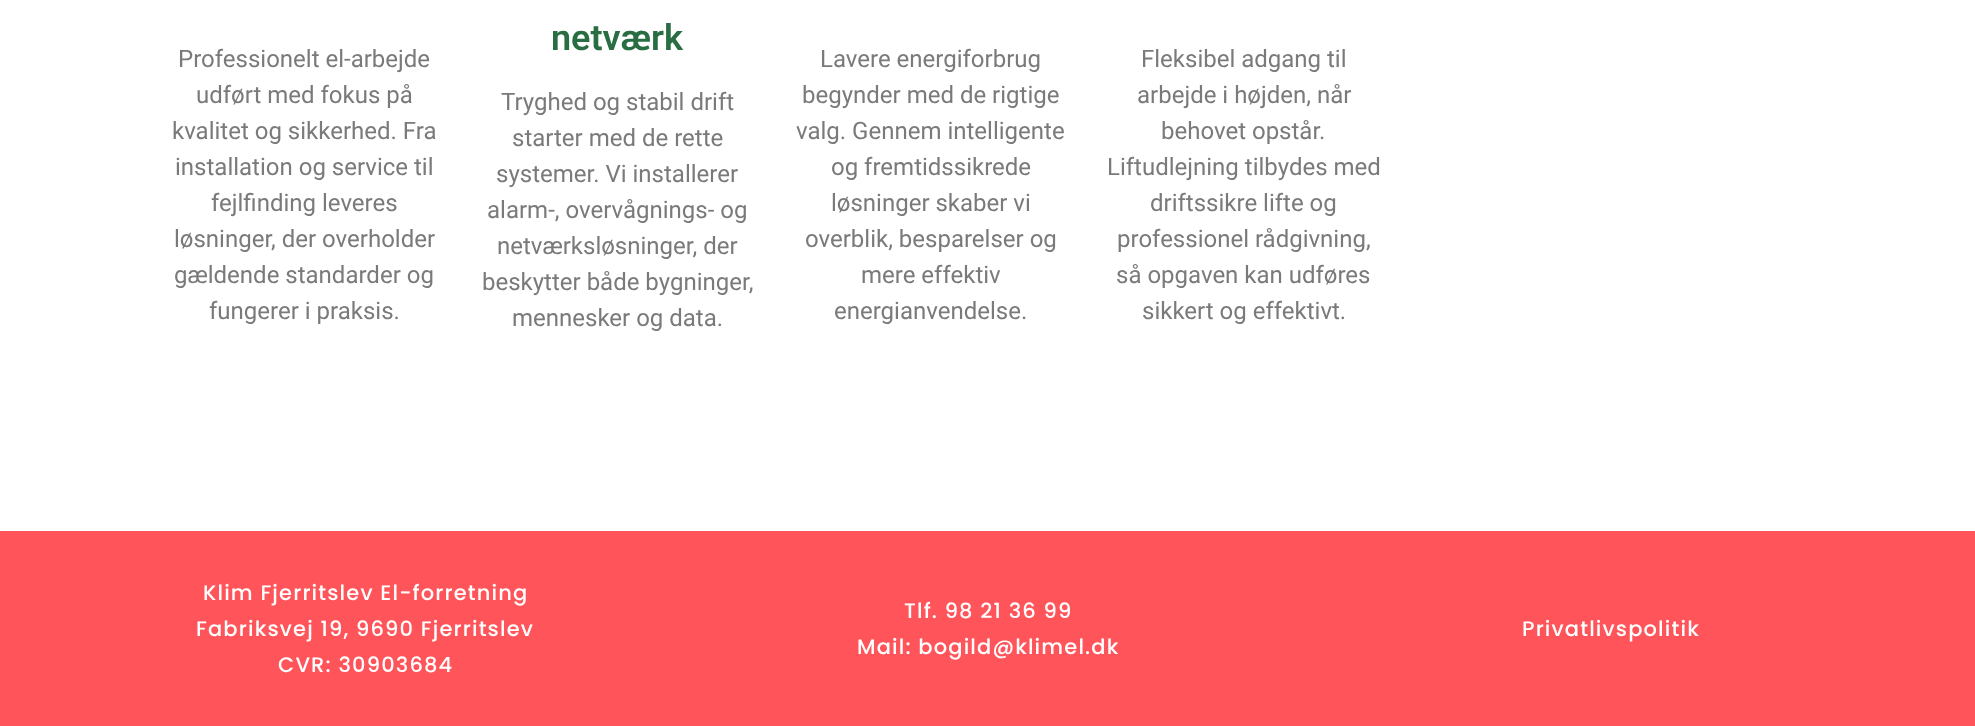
<!DOCTYPE html>
<meta charset="utf-8">
<style>body { margin: 0 } canvas { display: block }</style>
<canvas id="canvas" width="1975" height="726"></canvas>
<script>
window.onload = function () {
	const canvas = document.getElementById("canvas");
	const ctx = canvas.getContext("2d");
	ctx.miterLimit = 4;
	ctx.fontKerning = "normal";
	function txt(s, x, y) {
		ctx.fillText(s, x, y);
	}
	function fill(x, y, w, h) {
		ctx.fillRect(x, y, w, h);
	}

	ctx.fillStyle = "#FFFFFF";
	fill(0, 0, 1975, 726);
	ctx.fillStyle = "#FF5459";
	fill(0, 531, 1975, 195);
	ctx.font = "24px Roboto";
	ctx.fillStyle = "#7A7A7A";
	txt("Professionelt el-arbejde", 178, 67);
	txt("udført med fokus på", 196, 103);
	txt("kvalitet og sikkerhed. Fra", 172, 139);
	txt("installation og service til", 175, 175);
	txt("fejlfinding leveres", 211, 211);
	txt("løsninger, der overholder", 174, 247);
	txt("gældende standarder og", 174, 283);
	txt("fungerer i praksis.", 209, 319);
	ctx.font = "600 36px Roboto";
	ctx.fillStyle = "#296D43";
	txt("netværk", 551, 50);
	ctx.font = "24px Roboto";
	ctx.fillStyle = "#7A7A7A";
	txt("Tryghed og stabil drift", 501, 110);
	txt("starter med de rette", 512, 146);
	txt("systemer. Vi installerer", 496, 182);
	txt("alarm-, overvågnings- og", 487, 218);
	txt("netværksløsninger, der", 497, 254);
	txt("beskytter både bygninger,", 482, 290);
	txt("mennesker og data.", 512, 326);
	txt("Lavere energiforbrug", 820, 67);
	txt("begynder med de rigtige", 802, 103);
	txt("valg. Gennem intelligente", 796, 139);
	txt("og fremtidssikrede", 831, 175);
	txt("løsninger skaber vi", 831, 211);
	txt("overblik, besparelser og", 805, 247);
	txt("mere effektiv", 861, 283);
	txt("energianvendelse.", 834, 319);
	txt("Fleksibel adgang til", 1141, 67);
	txt("arbejde i højden, når", 1137, 103);
	txt("behovet opstår.", 1161, 139);
	txt("Liftudlejning tilbydes med", 1107, 175);
	txt("driftssikre lifte og", 1150, 211);
	txt("professionel rådgivning,", 1117, 247);
	txt("så opgaven kan udføres", 1116, 283);
	txt("sikkert og effektivt.", 1142, 319);
	ctx.letterSpacing = "1.15px";
	ctx.font = "500 21px Poppins";
	ctx.fillStyle = "#FFFFFF";
	txt("Klim Fjerritslev El-forretning", 203, 600);
	txt("Fabriksvej 19, 9690 Fjerritslev", 196, 636);
	txt("CVR: 30903684", 278, 672);
	txt("Tlf. 98 21 36 99", 904, 618);
	txt("Mail: bogild@klimel.dk", 857, 654);
	txt("Privatlivspolitik", 1522, 636);
};
</script>
